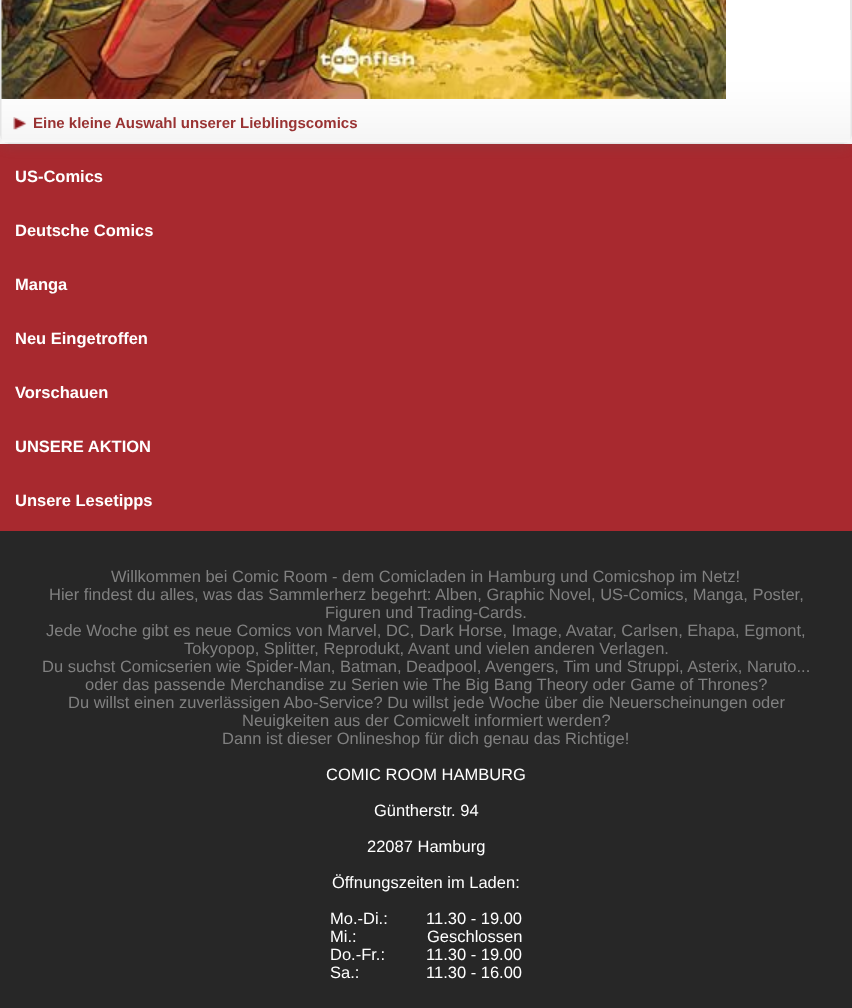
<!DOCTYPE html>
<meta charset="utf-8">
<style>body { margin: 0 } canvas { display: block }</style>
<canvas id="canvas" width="852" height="1008"></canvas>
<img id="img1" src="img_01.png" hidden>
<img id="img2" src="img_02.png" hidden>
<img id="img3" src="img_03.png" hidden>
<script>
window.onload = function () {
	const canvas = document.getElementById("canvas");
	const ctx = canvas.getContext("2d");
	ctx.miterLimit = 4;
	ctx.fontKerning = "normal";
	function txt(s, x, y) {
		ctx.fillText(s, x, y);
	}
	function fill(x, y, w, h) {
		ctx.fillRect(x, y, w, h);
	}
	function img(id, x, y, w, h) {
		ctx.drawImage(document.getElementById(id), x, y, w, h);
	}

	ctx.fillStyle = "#FFFFFF";
	fill(0, 0, 852, 1008);
	ctx.fillStyle = "#A8292F";
	fill(0, 144, 852, 387);
	ctx.save();
	ctx.beginPath();
	ctx.moveTo(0, 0);
	ctx.lineTo(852, 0);
	ctx.lineTo(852, 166);
	ctx.lineTo(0, 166);
	ctx.closePath();
	ctx.moveTo(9, -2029);
	ctx.lineTo(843, -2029);
	ctx.bezierCurveTo(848, -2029, 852, -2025, 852, -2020);
	ctx.lineTo(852, 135);
	ctx.bezierCurveTo(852, 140, 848, 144, 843, 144);
	ctx.lineTo(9, 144);
	ctx.bezierCurveTo(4, 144, 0, 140, 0, 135);
	ctx.lineTo(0, -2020);
	ctx.bezierCurveTo(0, -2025, 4, -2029, 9, -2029);
	ctx.closePath();
	ctx.clip("evenodd");
	ctx.fillStyle = "rgba(99, 99, 99, 0.2)";
	ctx.filter = "blur(6px)";
	ctx.beginPath();
	ctx.roundRect(0, -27, 852, 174, 9);
	ctx.fill();
	ctx.filter = "none";
	ctx.restore();
	ctx.beginPath();
	ctx.roundRect(1, -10, 850, 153, 8);
	ctx.strokeStyle = "#E5E5E5";
	ctx.lineWidth = 2;
	ctx.stroke();
	img("img1", 1, 30, 850, 113);
	img("img2", 1, 0, 725, 99);
	img("img3", 13, 117, 14, 13);
	ctx.fillStyle = "#272727";
	fill(0, 531, 852, 477);
	ctx.font = "bold 15px Liberation Sans";
	ctx.fillStyle = "#993333";
	txt("Eine kleine Auswahl unserer Lieblingscomics", 33, 128);
	ctx.font = "bold 16.5px Liberation Sans";
	ctx.fillStyle = "#FFFFFF";
	txt("US-Comics", 15, 182);
	txt("Deutsche Comics", 15, 236);
	txt("Manga", 15, 290);
	txt("Neu Eingetroffen", 15, 344);
	txt("Vorschauen", 15, 398);
	txt("UNSERE AKTION", 15, 452);
	txt("Unsere Lesetipps", 15, 506);
	ctx.font = "16.5px Liberation Sans";
	ctx.fillStyle = "#808080";
	txt("Willkommen bei Comic Room - dem Comicladen in Hamburg und Comicshop im Netz!", 111, 582);
	txt("Hier findest du alles, was das Sammlerherz begehrt: Alben, Graphic Novel, US-Comics, Manga, Poster,", 49, 600);
	txt("Figuren und Trading-Cards.", 325, 618);
	txt("Jede Woche gibt es neue Comics von Marvel, DC, Dark Horse, Image, Avatar, Carlsen, Ehapa, Egmont,", 46, 636);
	txt("Tokyopop, Splitter, Reprodukt, Avant und vielen anderen Verlagen.", 184, 654);
	txt("Du suchst Comicserien wie Spider-Man, Batman, Deadpool, Avengers, Tim und Struppi, Asterix, Naruto...", 42, 672);
	txt("oder das passende Merchandise zu Serien wie The Big Bang Theory oder Game of Thrones?", 85, 690);
	txt("Du willst einen zuverlässigen Abo-Service? Du willst jede Woche über die Neuerscheinungen oder", 68, 708);
	txt("Neuigkeiten aus der Comicwelt informiert werden?", 242, 726);
	txt("Dann ist dieser Onlineshop für dich genau das Richtige!", 222, 744);
	ctx.fillStyle = "#FFFFFF";
	txt("COMIC ROOM HAMBURG", 326, 780);
	txt("Güntherstr. 94", 374, 816);
	txt("22087 Hamburg", 367, 852);
	txt("Öffnungszeiten im Laden:", 332, 888);
	txt("Mo.-Di.:", 330, 924);
	txt("11.30 - 19.00", 426, 924);
	txt("Mi.:", 330, 942);
	txt("Geschlossen", 427, 942);
	txt("Do.-Fr.:", 330, 960);
	txt("11.30 - 19.00", 426, 960);
	txt("Sa.:", 330, 978);
	txt("11.30 - 16.00", 426, 978);
};
</script>
